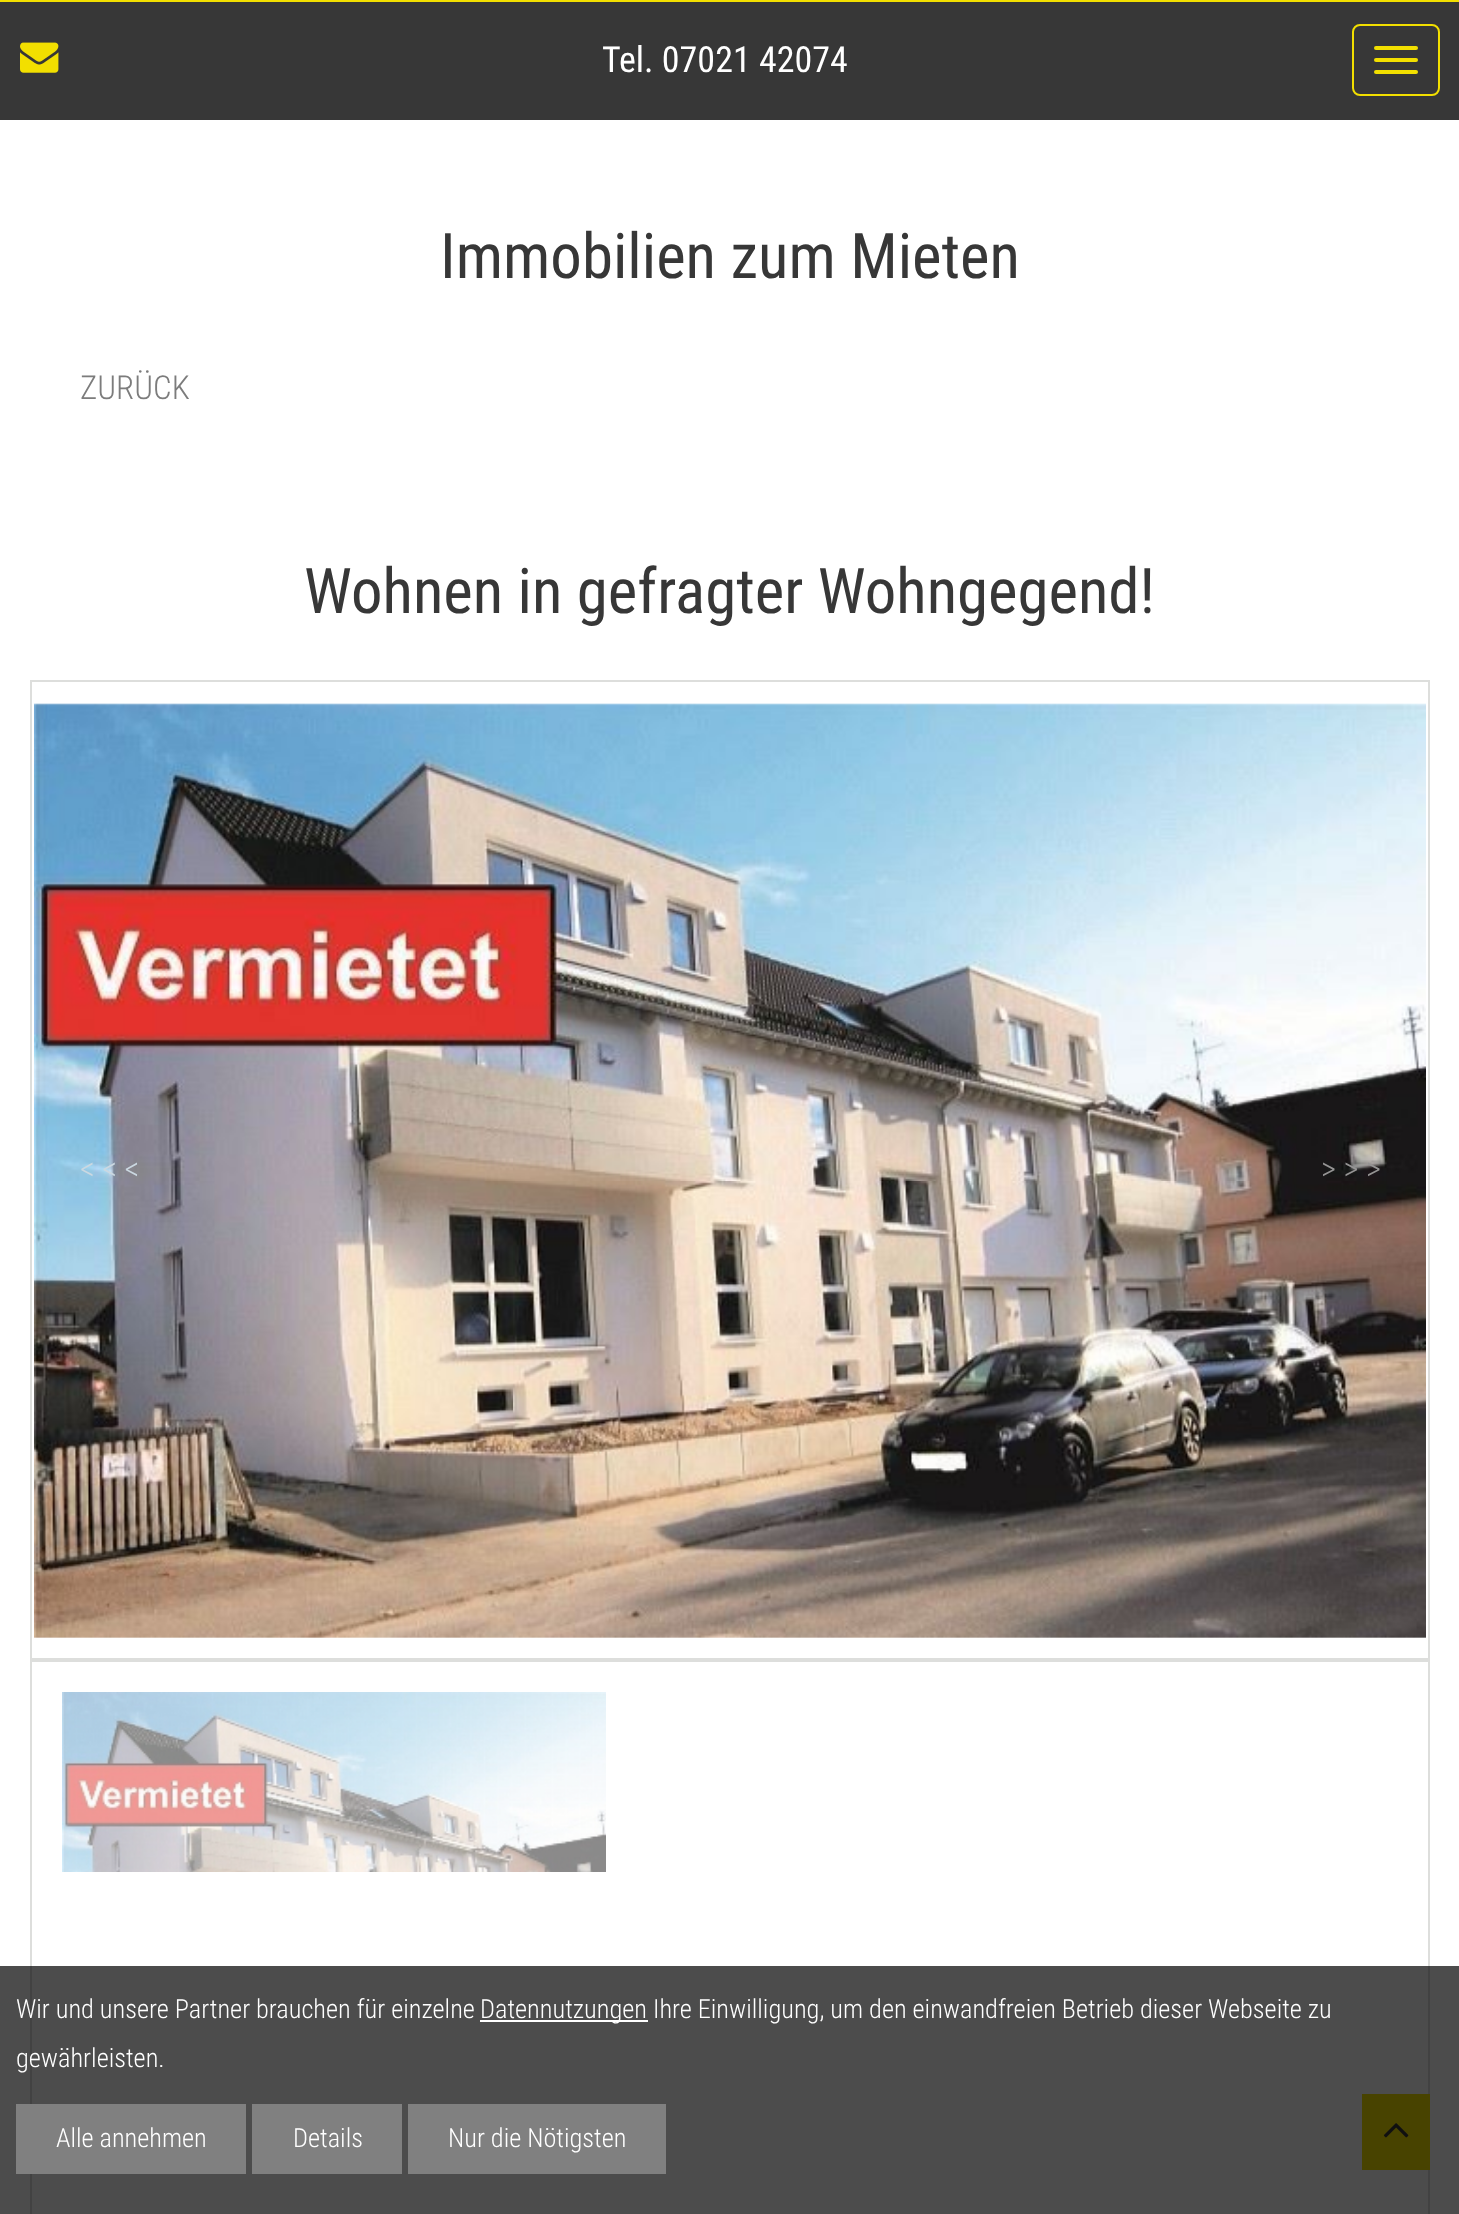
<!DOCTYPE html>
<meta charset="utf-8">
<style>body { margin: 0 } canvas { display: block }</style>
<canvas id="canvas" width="1459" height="2214"></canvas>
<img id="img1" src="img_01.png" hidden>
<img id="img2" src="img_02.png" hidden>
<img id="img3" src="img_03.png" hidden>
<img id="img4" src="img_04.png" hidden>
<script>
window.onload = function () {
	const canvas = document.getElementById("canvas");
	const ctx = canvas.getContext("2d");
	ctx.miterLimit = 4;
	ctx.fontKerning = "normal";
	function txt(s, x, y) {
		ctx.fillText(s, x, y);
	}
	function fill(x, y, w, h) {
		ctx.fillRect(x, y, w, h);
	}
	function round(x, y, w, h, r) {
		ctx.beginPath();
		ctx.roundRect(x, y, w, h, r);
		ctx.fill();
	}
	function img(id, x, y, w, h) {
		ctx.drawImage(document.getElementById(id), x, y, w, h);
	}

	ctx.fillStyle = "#FFFFFF";
	fill(0, 0, 1459, 2214);
	ctx.fillStyle = "#373737";
	fill(0, 2, 1459, 118);
	ctx.fillStyle = "#F2DF00";
	fill(0, 0, 1459, 2);
	img("img1", 20, 42, 39, 31);
	ctx.beginPath();
	ctx.roundRect(1353, 25, 86, 70, 7);
	ctx.strokeStyle = "#F2DF00";
	ctx.lineWidth = 2;
	ctx.stroke();
	round(1374, 46, 44, 4, 2);
	round(1374, 58, 44, 4, 2);
	round(1374, 70, 44, 4, 2);
	ctx.strokeStyle = "#DDDEDC";
	ctx.strokeRect(31, 681, 1398, 978);
	img("img2", 34, 703, 1392, 935);
	ctx.strokeRect(31, 1661, 1398, 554);
	img("img3", 62, 1692, 544, 180);
	fill(1362, 2094, 68, 76);
	img("img4", 1383, 2123, 26, 15);
	ctx.fillStyle = "rgba(0, 0, 0, 0.7)";
	fill(0, 1966, 1459, 248);
	ctx.fillStyle = "#FFFFFF";
	fill(480, 2020, 168, 2);
	ctx.fillStyle = "#808080";
	fill(16, 2104, 230, 70);
	fill(252, 2104, 150, 70);
	fill(408, 2104, 258, 70);
	ctx.font = "36px Roboto Condensed";
	ctx.fillStyle = "#FFFFFF";
	txt("Tel. 07021 42074", 602, 72);
	ctx.font = "62.9px Roboto Condensed";
	ctx.fillStyle = "#373737";
	txt("Immobilien zum Mieten", 440, 278);
	ctx.font = "300 33px Roboto Condensed";
	ctx.fillStyle = "#7C7C7C";
	txt("ZURÜCK", 80, 399);
	ctx.font = "62.9px Roboto Condensed";
	ctx.fillStyle = "#373737";
	txt("Wohnen in gefragter Wohngegend!", 304, 613);
	ctx.font = "300 33px Roboto Condensed";
	ctx.fillStyle = "#CBD8E1";
	txt("< < <", 80, 1180);
	ctx.fillStyle = "#959494";
	txt("> > >", 1321, 1180);
	ctx.font = "300 26.35px Roboto Condensed";
	ctx.fillStyle = "#FFFFFF";
	txt("Wir und unsere Partner brauchen für einzelne", 16, 2018);
	txt("Datennutzungen Ihre Einwilligung, um den einwandfreien Betrieb dieser Webseite zu", 480, 2018);
	txt("gewährleisten.", 16, 2067);
	txt("Alle annehmen", 56, 2147);
	txt("Details", 293, 2147);
	txt("Nur die Nötigsten", 448, 2147);
};
</script>
